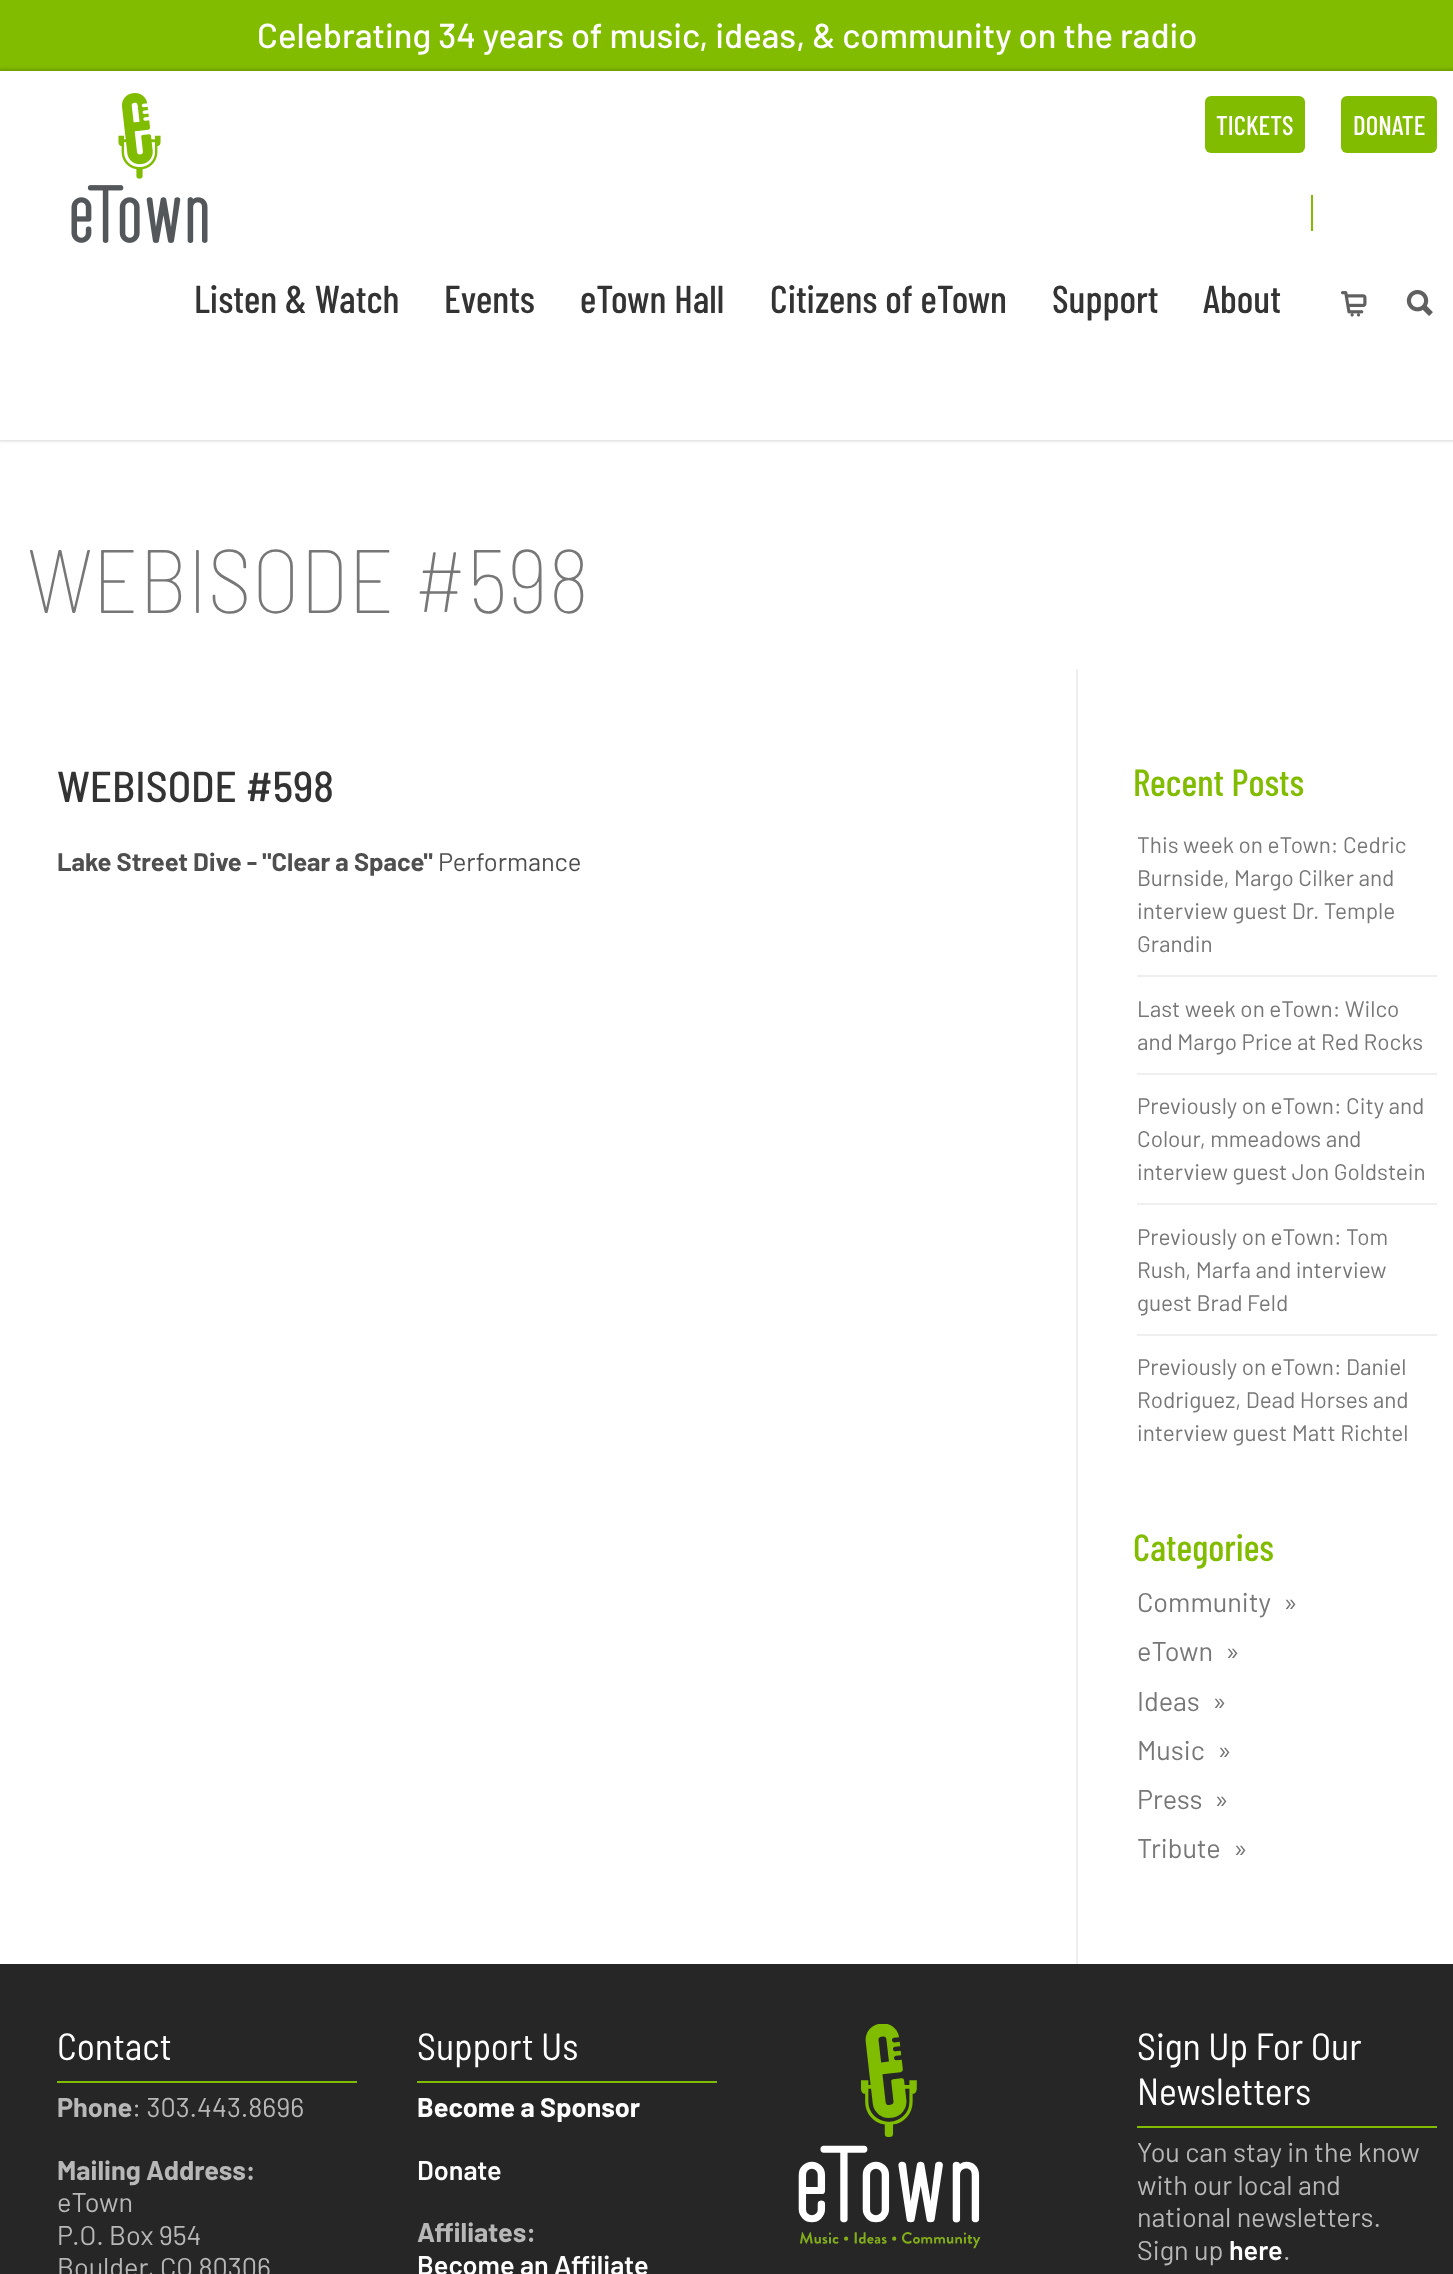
<!DOCTYPE html>
<meta charset="utf-8">
<style>body { margin: 0 } canvas { display: block }</style>
<canvas id="canvas" width="1453" height="2274"></canvas>
<img id="img1" src="img_01.png" hidden>
<img id="img2" src="img_02.png" hidden>
<img id="img3" src="img_03.png" hidden>
<img id="img4" src="img_04.png" hidden>
<script>
window.onload = function () {
	const canvas = document.getElementById("canvas");
	const ctx = canvas.getContext("2d");
	ctx.miterLimit = 4;
	ctx.fontKerning = "normal";
	function txt(s, x, y) {
		ctx.fillText(s, x, y);
	}
	function fill(x, y, w, h) {
		ctx.fillRect(x, y, w, h);
	}
	function round(x, y, w, h, r) {
		ctx.beginPath();
		ctx.roundRect(x, y, w, h, r);
		ctx.fill();
	}
	function img(id, x, y, w, h) {
		ctx.drawImage(document.getElementById(id), x, y, w, h);
	}

	ctx.fillStyle = "#FFFFFF";
	fill(0, 0, 1453, 2274);
	ctx.fillStyle = "#82BC00";
	fill(0, 0, 1453, 71);
	ctx.fillStyle = "rgba(0, 0, 0, 0.16)";
	ctx.filter = "blur(1.5px)";
	ctx.beginPath();
	ctx.rect(-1, 69, 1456, 372);
	ctx.fill();
	ctx.filter = "none";
	ctx.fillStyle = "#FFFFFF";
	fill(0, 71, 1453, 369);
	ctx.fillStyle = "#82BC00";
	round(1205, 96, 100, 57, 6);
	round(1341, 96, 96, 57, 6);
	img("img1", 71, 93, 137, 150);
	fill(1311, 195, 2, 36);
	img("img2", 1341, 291, 26, 26);
	img("img3", 1406, 289, 27, 27);
	ctx.fillStyle = "#EFEFEF";
	fill(1076, 669, 2, 1295);
	fill(1137, 975, 300, 2);
	fill(1137, 1073, 300, 2);
	fill(1137, 1203, 300, 2);
	fill(1137, 1334, 300, 2);
	ctx.fillStyle = "#262626";
	fill(0, 1964, 1453, 310);
	ctx.fillStyle = "#80BC00";
	fill(57, 2081, 300, 2);
	fill(417, 2081, 300, 2);
	img("img4", 798, 2024, 183, 225);
	fill(1137, 2126, 300, 2);
	ctx.font = "500 34.5px Barlow";
	ctx.fillStyle = "#FFFFFF";
	txt("Celebrating 34 years of music, ideas, & community on the radio", 257, 48);
	ctx.font = "500 27px Barlow Condensed";
	txt("TICKETS", 1216, 135);
	txt("DONATE", 1353, 135);
	ctx.font = "500 39px Barlow Condensed";
	ctx.fillStyle = "#333333";
	txt("Listen & Watch", 194, 313);
	txt("Events", 444, 313);
	txt("eTown Hall", 580, 313);
	txt("Citizens of eTown", 770, 313);
	txt("Support", 1052, 313);
	txt("About", 1203, 313);
	ctx.font = "100 90px Barlow Semi Condensed";
	ctx.fillStyle = "#777777";
	txt("WEBISODE #598", 27, 613);
	ctx.font = "500 43.25px Barlow Semi Condensed";
	ctx.fillStyle = "#333333";
	txt("WEBISODE #598", 57, 802);
	ctx.font = "bold 25.5px Barlow";
	ctx.fillStyle = "#4F4F4F";
	txt("Lake Street Dive - \"Clear a Space\"", 57, 871);
	ctx.font = "25.5px Barlow";
	txt("Performance", 438, 871);
	ctx.font = "500 37.75px Barlow Condensed";
	ctx.fillStyle = "#82BC00";
	txt("Recent Posts", 1133, 796);
	ctx.font = "22.5px Barlow";
	ctx.fillStyle = "#777777";
	txt("This week on eTown: Cedric", 1137, 853);
	txt("Burnside, Margo Cilker and", 1137, 886);
	txt("interview guest Dr. Temple", 1137, 919);
	txt("Grandin", 1137, 952);
	txt("Last week on eTown: Wilco", 1137, 1017);
	txt("and Margo Price at Red Rocks", 1137, 1050);
	txt("Previously on eTown: City and", 1137, 1114);
	txt("Colour, mmeadows and", 1137, 1147);
	txt("interview guest Jon Goldstein", 1137, 1180);
	txt("Previously on eTown: Tom", 1137, 1245);
	txt("Rush, Marfa and interview", 1137, 1278);
	txt("guest Brad Feld", 1137, 1311);
	txt("Previously on eTown: Daniel", 1137, 1375);
	txt("Rodriguez, Dead Horses and", 1137, 1408);
	txt("interview guest Matt Richtel", 1137, 1441);
	ctx.font = "500 37.75px Barlow Condensed";
	ctx.fillStyle = "#82BC00";
	txt("Categories", 1133, 1561);
	ctx.font = "27px Barlow";
	ctx.fillStyle = "#777777";
	txt("Community", 1137, 1612);
	txt("»", 1283, 1612);
	txt("eTown", 1137, 1661);
	txt("»", 1225, 1661);
	txt("Ideas", 1137, 1711);
	txt("»", 1212, 1711);
	txt("Music", 1137, 1760);
	txt("»", 1217, 1760);
	txt("Press", 1137, 1809);
	txt("»", 1214, 1809);
	txt("Tribute", 1137, 1858);
	txt("»", 1233, 1858);
	ctx.font = "37.75px Barlow Semi Condensed";
	ctx.fillStyle = "#FFFFFF";
	txt("Contact", 57, 2060);
	ctx.font = "bold 27px Barlow";
	ctx.fillStyle = "#B7B7B7";
	txt("Phone", 57, 2117);
	ctx.font = "27px Barlow";
	txt(": 303.443.8696", 132, 2117);
	ctx.font = "bold 27px Barlow";
	txt("Mailing Address:", 57, 2180);
	ctx.font = "27px Barlow";
	txt("eTown", 57, 2212);
	txt("P.O. Box 954", 57, 2245);
	txt("Boulder, CO 80306", 57, 2277);
	ctx.font = "37.75px Barlow Semi Condensed";
	ctx.fillStyle = "#FFFFFF";
	txt("Support Us", 417, 2060);
	ctx.font = "bold 27px Barlow";
	txt("Become a Sponsor", 417, 2117);
	ctx.font = "600 27px Barlow";
	txt("Donate", 417, 2180);
	ctx.font = "bold 27px Barlow";
	ctx.fillStyle = "#B7B7B7";
	txt("Affiliates:", 417, 2242);
	ctx.font = "600 27px Barlow";
	ctx.fillStyle = "#FFFFFF";
	txt("Become an Affiliate", 417, 2275);
	ctx.font = "37.75px Barlow Semi Condensed";
	txt("Sign Up For Our", 1137, 2060);
	txt("Newsletters", 1137, 2105);
	ctx.font = "27px Barlow";
	ctx.fillStyle = "#B7B7B7";
	txt("You can stay in the know", 1137, 2162);
	txt("with our local and", 1137, 2195);
	txt("national newsletters.", 1137, 2227);
	txt("Sign up", 1137, 2260);
	ctx.font = "600 27px Barlow";
	ctx.fillStyle = "#FFFFFF";
	txt("here", 1229, 2260);
	ctx.font = "27px Barlow";
	ctx.fillStyle = "#B7B7B7";
	txt(".", 1283, 2260);
};
</script>
